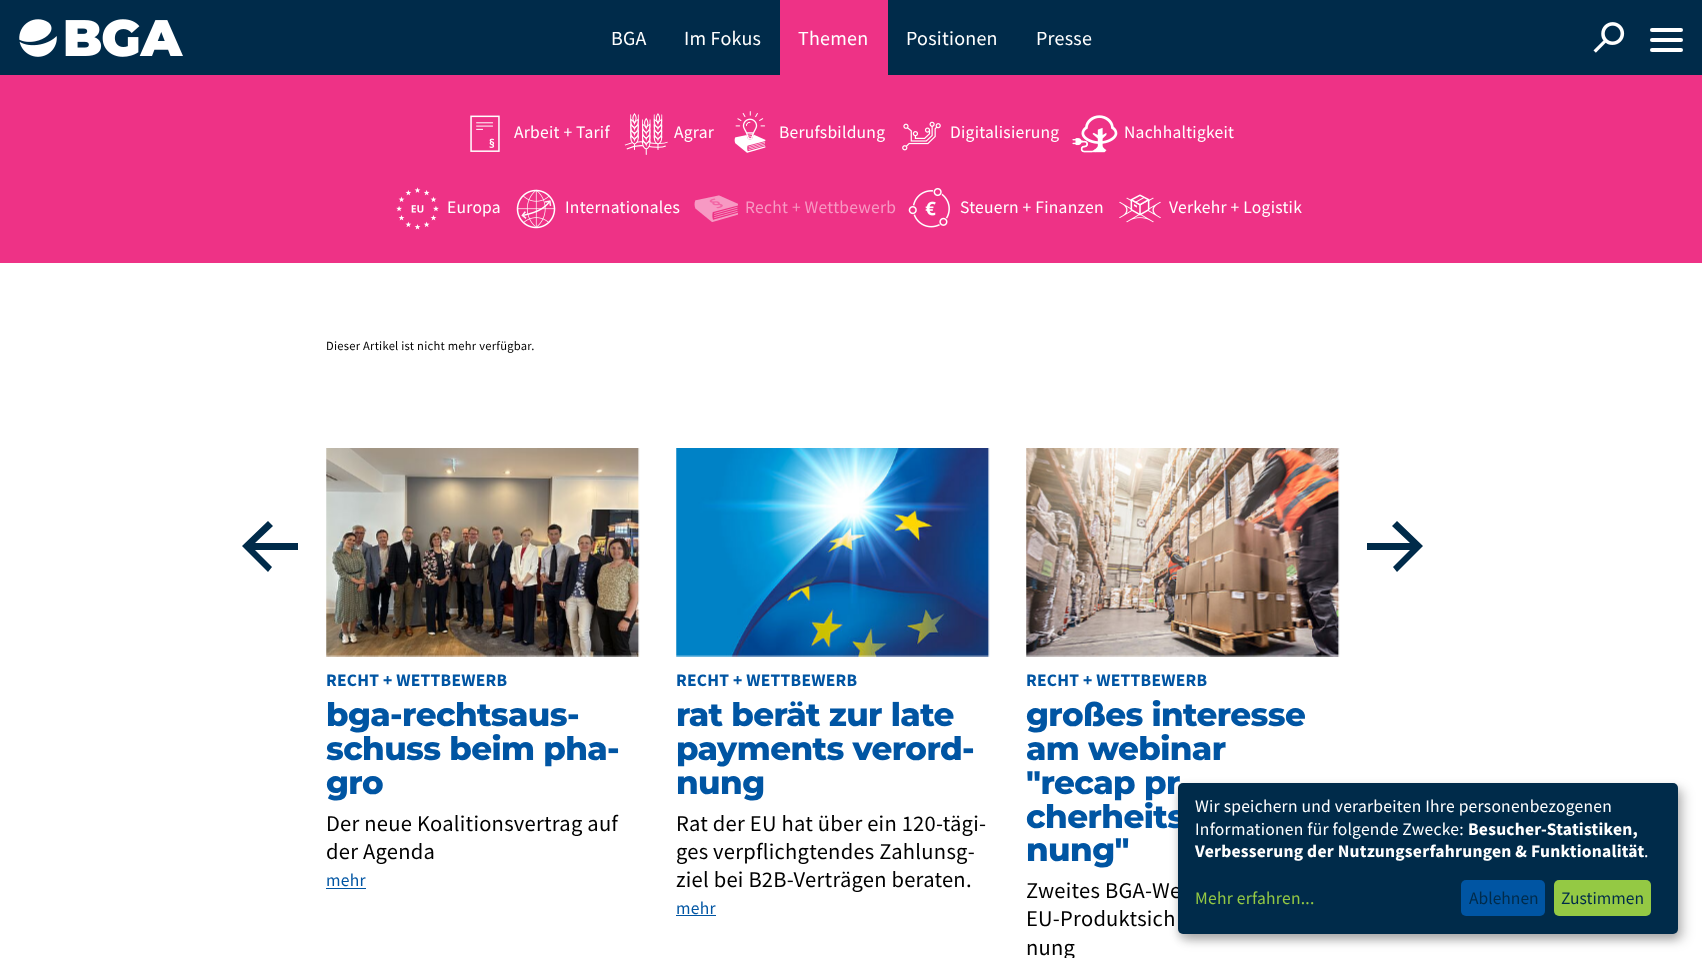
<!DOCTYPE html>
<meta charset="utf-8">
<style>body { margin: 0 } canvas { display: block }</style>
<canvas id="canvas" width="1702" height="958"></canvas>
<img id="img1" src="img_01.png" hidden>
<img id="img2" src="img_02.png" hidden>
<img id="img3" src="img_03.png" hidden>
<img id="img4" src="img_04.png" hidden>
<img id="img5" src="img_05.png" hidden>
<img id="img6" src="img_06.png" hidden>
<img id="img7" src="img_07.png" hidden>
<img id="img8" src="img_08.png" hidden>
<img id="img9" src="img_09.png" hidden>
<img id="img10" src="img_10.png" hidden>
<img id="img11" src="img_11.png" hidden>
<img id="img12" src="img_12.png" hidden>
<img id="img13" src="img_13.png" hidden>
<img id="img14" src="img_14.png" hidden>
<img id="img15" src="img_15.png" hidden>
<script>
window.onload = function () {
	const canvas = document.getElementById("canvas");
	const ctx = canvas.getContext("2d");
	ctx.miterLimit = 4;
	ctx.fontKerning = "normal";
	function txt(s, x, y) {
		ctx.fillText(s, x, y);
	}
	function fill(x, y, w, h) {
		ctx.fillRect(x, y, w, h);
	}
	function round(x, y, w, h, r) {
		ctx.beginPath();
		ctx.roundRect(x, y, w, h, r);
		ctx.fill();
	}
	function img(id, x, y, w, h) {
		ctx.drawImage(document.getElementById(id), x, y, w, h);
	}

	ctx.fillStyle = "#FFFFFF";
	fill(0, 0, 1702, 958);
	ctx.fillStyle = "#002B4A";
	fill(0, 0, 1702, 75);
	img("img1", 19, 19, 164, 38);
	ctx.fillStyle = "#EE3286";
	fill(780, 0, 108, 75);
	fill(0, 75, 1702, 188);
	img("img2", 470, 115, 30, 37);
	img("img3", 624, 113, 44, 42);
	img("img4", 734, 111, 32, 42);
	img("img5", 902, 121, 39, 30);
	img("img6", 1072, 115, 46, 38);
	img("img7", 396, 187, 43, 43);
	img("img8", 516, 189, 40, 40);
	img("img9", 694, 195, 44, 27);
	img("img10", 908, 187, 42, 41);
	img("img11", 1119, 194, 42, 29);
	img("img12", 1593, 22, 32, 31);
	ctx.fillStyle = "#FFFFFF";
	round(1650, 28, 33, 4, 2);
	round(1650, 38, 33, 4, 2);
	round(1650, 48, 33, 4, 2);
	ctx.fillStyle = "#002B4A";
	ctx.beginPath();
	ctx.moveTo(298, 550);
	ctx.lineTo(255, 550);
	ctx.lineTo(272, 567);
	ctx.lineTo(268, 572);
	ctx.lineTo(242, 546);
	ctx.lineTo(268, 521);
	ctx.lineTo(273, 526);
	ctx.lineTo(255, 543);
	ctx.lineTo(298, 543);
	ctx.closePath();
	ctx.fill("evenodd");
	ctx.beginPath();
	ctx.moveTo(1367, 550);
	ctx.lineTo(1410, 550);
	ctx.lineTo(1393, 567);
	ctx.lineTo(1397, 572);
	ctx.lineTo(1423, 546);
	ctx.lineTo(1397, 521);
	ctx.lineTo(1392, 526);
	ctx.lineTo(1410, 543);
	ctx.lineTo(1367, 543);
	ctx.closePath();
	ctx.fill("evenodd");
	img("img13", 326, 448, 314, 209);
	ctx.fillStyle = "#0055A3";
	fill(326, 888, 40, 1);
	img("img14", 676, 448, 314, 209);
	fill(676, 915, 40, 1);
	img("img15", 1026, 448, 314, 209);
	ctx.fillStyle = "rgba(0, 0, 0, 0.19)";
	ctx.filter = "blur(6px)";
	ctx.beginPath();
	ctx.roundRect(1184, 789, 500, 151, 5);
	ctx.fill();
	ctx.filter = "none";
	ctx.fillStyle = "rgba(0, 0, 0, 0.2)";
	ctx.filter = "blur(4px)";
	ctx.beginPath();
	ctx.roundRect(1178, 788, 500, 151, 5);
	ctx.fill();
	ctx.filter = "none";
	ctx.letterSpacing = "0.25px";
	ctx.font = "20px Source Sans Pro";
	ctx.fillStyle = "#FFFFFF";
	txt("Themen", 798, 45);
	ctx.font = "17.5px Source Sans Pro";
	txt("Arbeit + Tarif", 514, 138);
	txt("Agrar", 674, 138);
	txt("Berufsbildung", 779, 138);
	txt("Digitalisierung", 950, 138);
	txt("Nachhaltigkeit", 1124, 138);
	txt("Europa", 447, 213);
	txt("Internationales", 565, 213);
	ctx.fillStyle = "#F799C3";
	txt("Recht + Wettbewerb", 745, 213);
	ctx.fillStyle = "#FFFFFF";
	txt("Steuern + Finanzen", 960, 213);
	txt("Verkehr + Logistik", 1169, 213);
	ctx.font = "20px Source Sans Pro";
	txt("BGA", 611, 45);
	txt("Im Fokus", 684, 45);
	txt("Positionen", 906, 45);
	txt("Presse", 1036, 45);
	ctx.font = "12.5px Source Sans Pro";
	ctx.fillStyle = "#000000";
	txt("Dieser Artikel ist nicht mehr verfügbar.", 326, 350);
	ctx.font = "bold 17.5px Source Sans Pro";
	ctx.fillStyle = "#0055A3";
	txt("RECHT + WETTBEWERB", 326, 686);
	ctx.letterSpacing = "-0.6px";
	ctx.font = "100 32.5px Montserrat";
	txt("bga-rechtsaus-", 326, 726);
	txt("schuss beim pha-", 326, 760);
	txt("gro", 326, 794);
	ctx.letterSpacing = "0.25px";
	ctx.font = "22.5px Source Sans Pro";
	ctx.fillStyle = "#000000";
	txt("Der neue Koalitionsvertrag auf", 326, 831);
	txt("der Agenda", 326, 859);
	ctx.font = "17.5px Source Sans Pro";
	ctx.fillStyle = "#0055A3";
	txt("mehr", 326, 886);
	ctx.font = "bold 17.5px Source Sans Pro";
	txt("RECHT + WETTBEWERB", 676, 686);
	ctx.letterSpacing = "-0.6px";
	ctx.font = "100 32.5px Montserrat";
	txt("rat berät zur late", 676, 726);
	txt("payments verord-", 676, 760);
	txt("nung", 676, 794);
	ctx.letterSpacing = "0.25px";
	ctx.font = "22.5px Source Sans Pro";
	ctx.fillStyle = "#000000";
	txt("Rat der EU hat über ein 120-tägi-", 676, 831);
	txt("ges verpflichgtendes Zahlunsg-", 676, 859);
	txt("ziel bei B2B-Verträgen beraten.", 676, 887);
	ctx.font = "17.5px Source Sans Pro";
	ctx.fillStyle = "#0055A3";
	txt("mehr", 676, 914);
	ctx.font = "bold 17.5px Source Sans Pro";
	txt("RECHT + WETTBEWERB", 1026, 686);
	ctx.letterSpacing = "-0.6px";
	ctx.font = "100 32.5px Montserrat";
	txt("großes interesse", 1026, 726);
	txt("am webinar", 1026, 760);
	txt("\"recap pr", 1026, 794);
	txt("cherheits", 1026, 828);
	txt("nung\"", 1026, 861);
	ctx.letterSpacing = "0.25px";
	ctx.font = "22.5px Source Sans Pro";
	ctx.fillStyle = "#000000";
	txt("Zweites BGA-We", 1026, 898);
	txt("EU-Produktsich", 1026, 926);
	txt("nung", 1026, 955);
	ctx.fillStyle = "#002B4A";
	round(1178, 783, 500, 151, 5);
	ctx.font = "17.5px Source Sans Pro";
	ctx.fillStyle = "#FFFFFF";
	txt("Wir speichern und verarbeiten Ihre personenbezogenen", 1195, 812);
	txt("Informationen für folgende Zwecke:", 1195, 835);
	ctx.font = "bold 17.5px Source Sans Pro";
	txt("Besucher-Statistiken,", 1468, 835);
	txt("Verbesserung der Nutzungserfahrungen & Funktionalität", 1195, 857);
	ctx.font = "17.5px Source Sans Pro";
	txt(".", 1644, 857);
	ctx.fillStyle = "#94C944";
	txt("Mehr erfahren...", 1195, 904);
	ctx.fillStyle = "#0055A3";
	round(1461, 880, 84, 36, 5);
	ctx.letterSpacing = "0px";
	ctx.fillStyle = "#002B4A";
	txt("Ablehnen", 1469, 904);
	ctx.fillStyle = "#94C944";
	round(1554, 880, 97, 36, 5);
	ctx.fillStyle = "#002B4A";
	txt("Zustimmen", 1561, 904);
};
</script>
